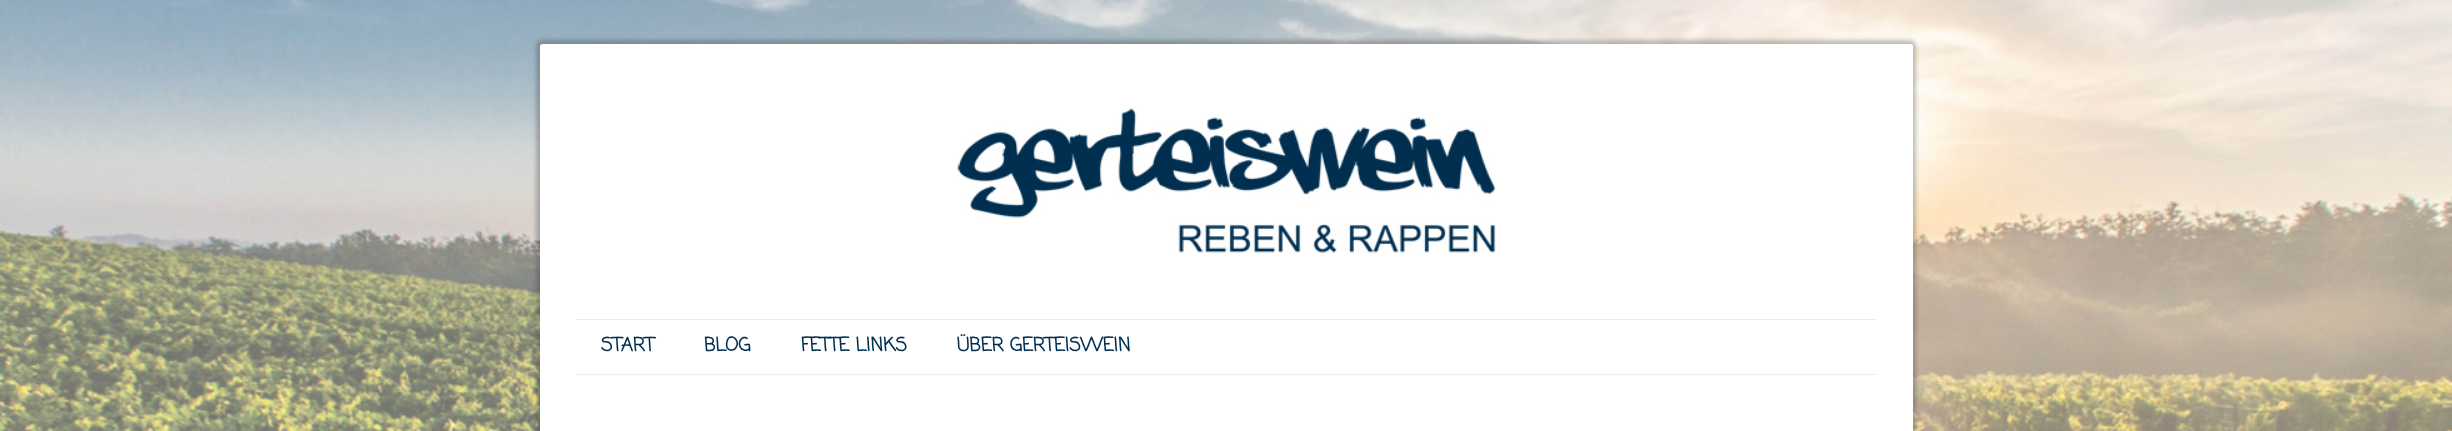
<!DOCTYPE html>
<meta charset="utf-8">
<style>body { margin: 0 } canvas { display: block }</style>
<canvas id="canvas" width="2452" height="431"></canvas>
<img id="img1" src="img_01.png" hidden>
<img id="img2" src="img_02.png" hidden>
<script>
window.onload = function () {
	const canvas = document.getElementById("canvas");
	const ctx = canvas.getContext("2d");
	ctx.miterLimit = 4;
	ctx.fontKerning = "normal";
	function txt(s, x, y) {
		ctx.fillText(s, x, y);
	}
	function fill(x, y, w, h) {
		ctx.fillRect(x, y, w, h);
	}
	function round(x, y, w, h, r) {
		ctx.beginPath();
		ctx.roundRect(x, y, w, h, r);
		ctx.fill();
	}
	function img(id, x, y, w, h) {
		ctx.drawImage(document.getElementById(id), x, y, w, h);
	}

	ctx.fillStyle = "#FFFFFF";
	fill(0, 0, 2452, 431);
	img("img1", 0, 0, 2452, 431);
	ctx.fillStyle = "rgba(51, 51, 51, 0.3)";
	ctx.filter = "blur(2px)";
	ctx.beginPath();
	ctx.roundRect(536, 40, 1380, 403, 6);
	ctx.fill();
	ctx.filter = "none";
	ctx.fillStyle = "#FFFFFF";
	round(540, 44, 1373, 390, 2.5);
	img("img2", 957, 108, 539, 145);
	ctx.fillStyle = "#EDEDED";
	fill(576, 319, 1300, 1);
	fill(576, 374, 1300, 1);
	ctx.font = "bold 18.75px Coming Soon";
	ctx.fillStyle = "#002F50";
	txt("START", 601, 351);
	txt("BLOG", 704, 351);
	txt("FETTE LINKS", 801, 351);
	txt("ÜBER GERTEISWEIN", 957, 351);
};
</script>
